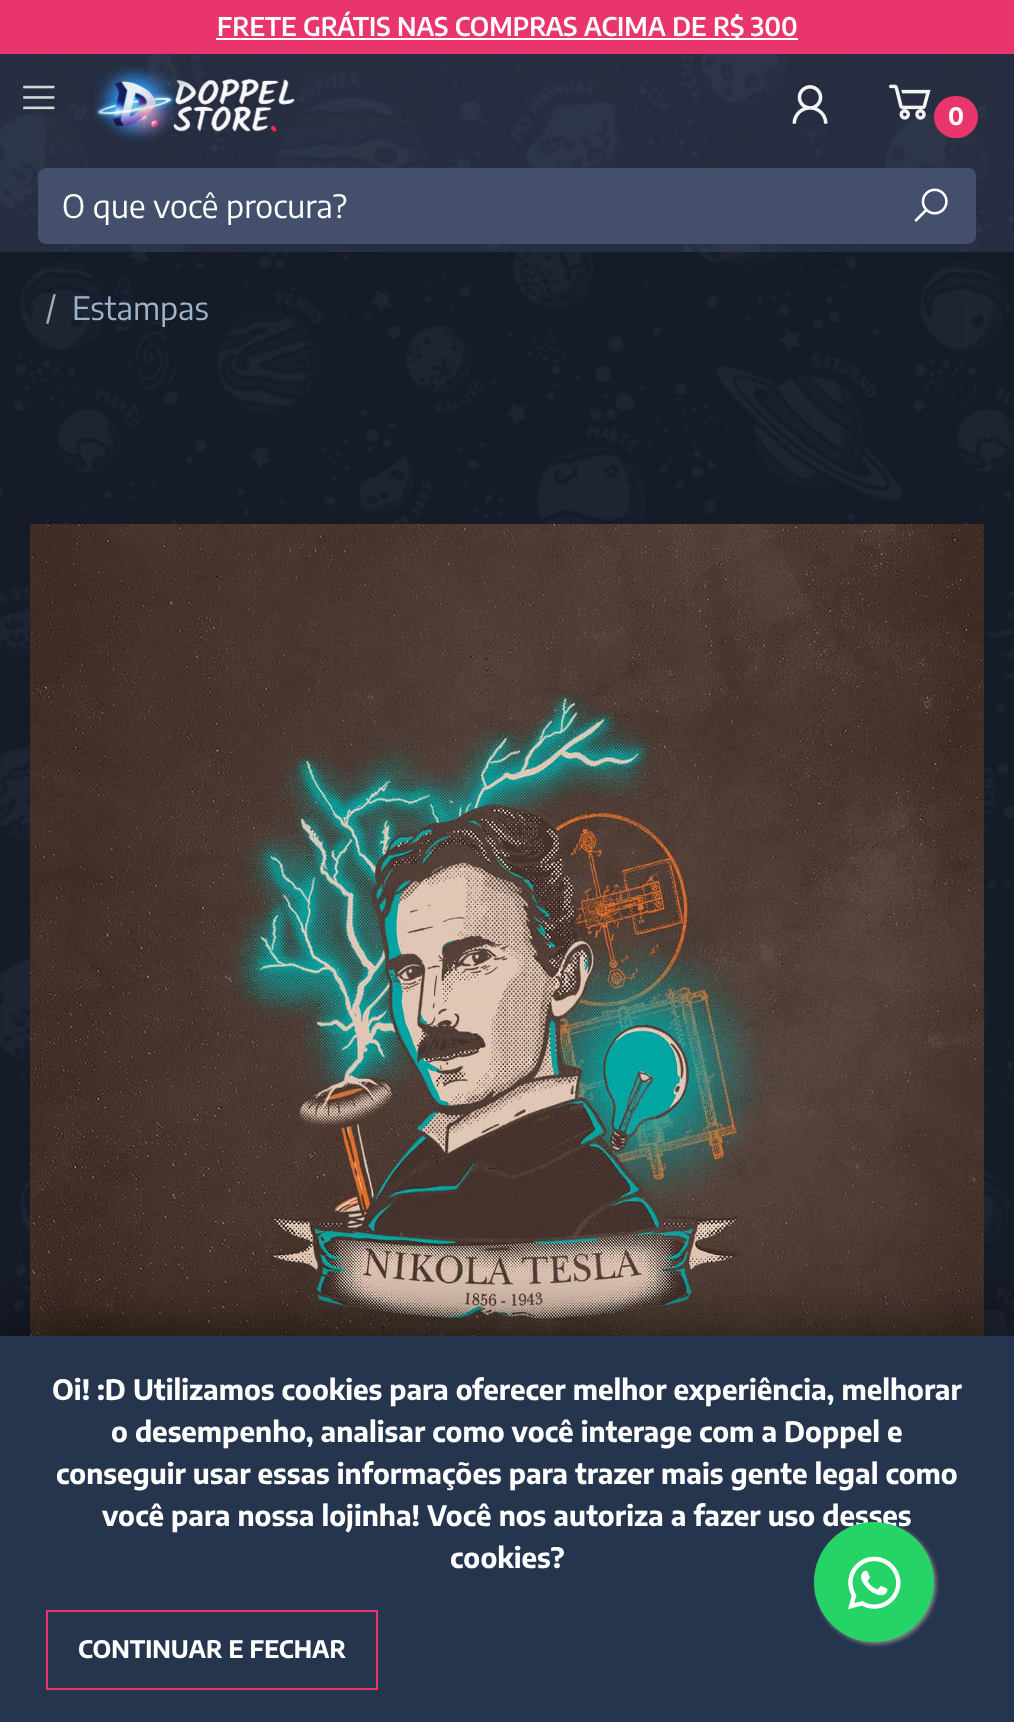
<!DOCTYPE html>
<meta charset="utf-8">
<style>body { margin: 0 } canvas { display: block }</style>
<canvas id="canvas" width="1014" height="1722"></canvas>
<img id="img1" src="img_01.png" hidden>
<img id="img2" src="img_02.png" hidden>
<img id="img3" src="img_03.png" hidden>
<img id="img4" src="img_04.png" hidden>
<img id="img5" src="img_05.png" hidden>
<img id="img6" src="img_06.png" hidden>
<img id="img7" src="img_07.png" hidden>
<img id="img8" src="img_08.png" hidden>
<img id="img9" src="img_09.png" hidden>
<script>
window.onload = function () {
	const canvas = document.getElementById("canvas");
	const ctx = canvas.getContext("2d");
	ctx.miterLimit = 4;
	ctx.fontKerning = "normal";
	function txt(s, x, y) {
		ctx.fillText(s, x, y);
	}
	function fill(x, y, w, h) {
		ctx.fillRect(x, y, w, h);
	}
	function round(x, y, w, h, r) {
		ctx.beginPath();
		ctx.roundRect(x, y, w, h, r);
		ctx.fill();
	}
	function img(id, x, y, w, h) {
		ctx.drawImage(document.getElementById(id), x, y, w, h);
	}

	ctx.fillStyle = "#161B28";
	fill(0, 0, 1014, 1722);
	img("img1", 0, 54, 1014, 1282);
	ctx.fillStyle = "#E9356C";
	fill(0, 0, 1014, 54);
	ctx.fillStyle = "#FFFFFF";
	fill(216, 38, 582, 2);
	ctx.fillStyle = "rgba(40, 48, 67, 0.9)";
	fill(0, 54, 1014, 198);
	img("img2", 0, 54, 1014, 198);
	img("img3", 23, 85, 32, 25);
	img("img4", 91, 64, 204, 79);
	img("img5", 792, 85, 36, 39);
	img("img6", 889, 84, 42, 36);
	ctx.fillStyle = "#E9356C";
	round(934, 96, 44, 42, 21);
	ctx.fillStyle = "#434F6B";
	round(38, 168, 938, 76, 8);
	img("img7", 914, 188, 34, 34);
	img("img8", 30, 524, 954, 812);
	ctx.fillStyle = "rgba(0, 0, 0, 0.68)";
	ctx.filter = "blur(40px)";
	ctx.beginPath();
	ctx.rect(0, 1336, 1014, 386);
	ctx.fill();
	ctx.filter = "none";
	ctx.fillStyle = "#24354D";
	fill(0, 1336, 1014, 386);
	ctx.strokeStyle = "#E9356C";
	ctx.lineWidth = 2;
	ctx.strokeRect(47, 1611, 330, 78);
	ctx.fillStyle = "#888888";
	ctx.filter = "blur(2px)";
	ctx.beginPath();
	ctx.roundRect(816, 1524, 120, 120, 60);
	ctx.fill();
	ctx.filter = "none";
	ctx.font = "600 25.6px Encode Sans Condensed";
	ctx.fillStyle = "#FFFFFF";
	txt("FRETE GRÁTIS NAS COMPRAS ACIMA DE R$ 300", 217, 36);
	ctx.font = "bold 24px Encode Sans Condensed";
	txt("0", 948, 125);
	ctx.font = "32px Encode Sans Condensed";
	txt("O que você procura?", 62, 218);
	ctx.fillStyle = "#A5A8AD";
	txt("/", 46, 320);
	ctx.fillStyle = "#9DB4CB";
	txt("Estampas", 72, 320);
	ctx.font = "bold 28px Encode Sans Condensed";
	ctx.fillStyle = "#FFFFFF";
	txt("Oi! :D Utilizamos cookies para oferecer melhor experiência, melhorar", 52, 1400);
	txt("o desempenho, analisar como você interage com a Doppel e", 111, 1442);
	txt("conseguir usar essas informações para trazer mais gente legal como", 56, 1484);
	txt("você para nossa lojinha! Você nos autoriza a fazer uso desses", 102, 1526);
	txt("cookies?", 450, 1568);
	ctx.font = "bold 24px Encode Sans Condensed";
	txt("CONTINUAR E FECHAR", 78, 1658);
	ctx.fillStyle = "#25D366";
	ctx.beginPath();
	ctx.arc(874, 1582, 60, 0, Math.PI * 2);
	ctx.fill();
	img("img9", 848, 1556, 53, 54);
};
</script>
